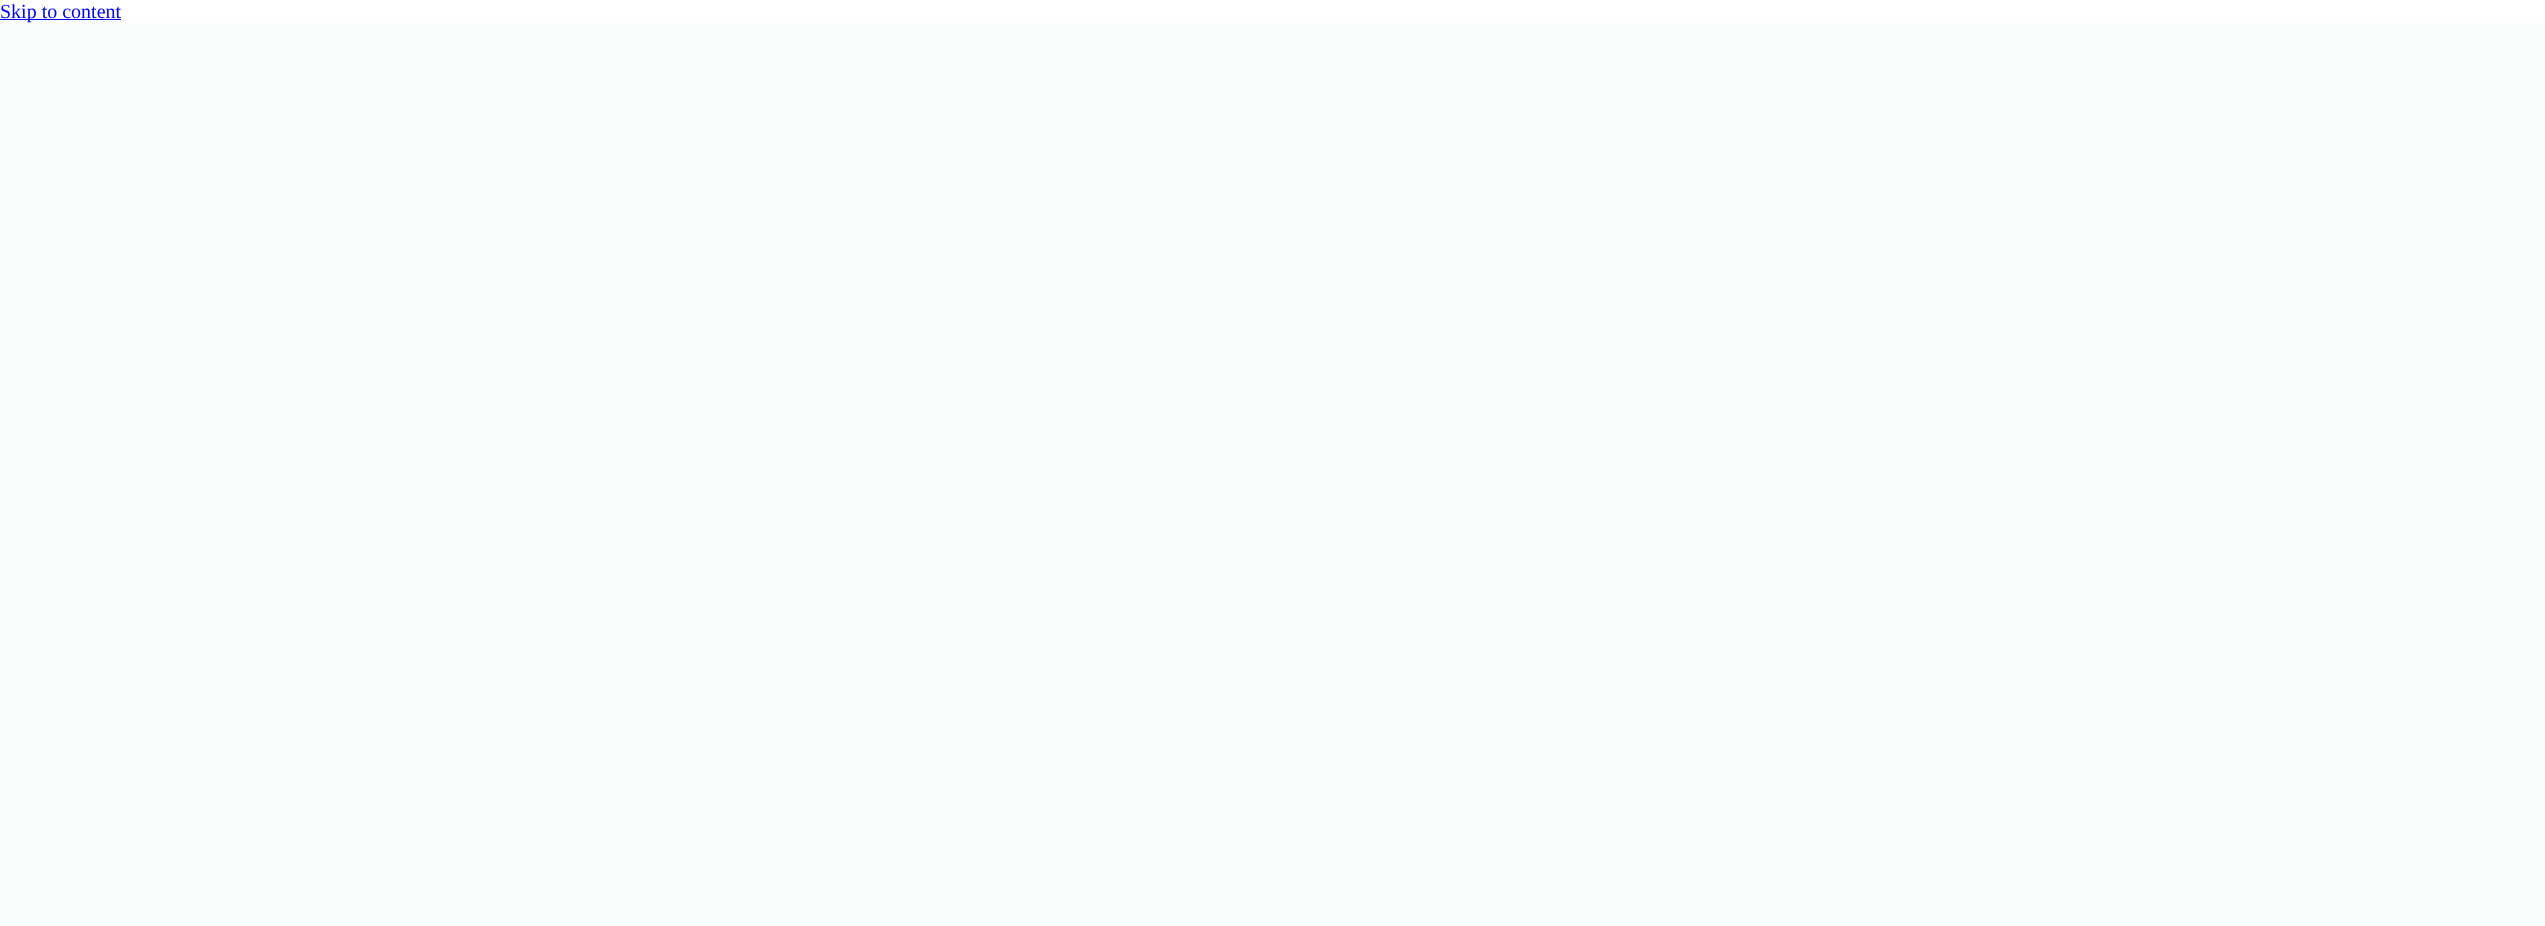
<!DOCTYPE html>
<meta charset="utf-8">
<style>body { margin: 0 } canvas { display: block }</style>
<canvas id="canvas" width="2545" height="926"></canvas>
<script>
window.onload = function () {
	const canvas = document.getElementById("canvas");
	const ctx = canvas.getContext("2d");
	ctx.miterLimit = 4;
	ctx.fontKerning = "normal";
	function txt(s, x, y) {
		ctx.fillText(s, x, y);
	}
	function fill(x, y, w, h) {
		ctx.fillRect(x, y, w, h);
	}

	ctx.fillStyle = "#FFFFFF";
	fill(0, 0, 2545, 926);
	ctx.fillStyle = "#0000EE";
	fill(0, 19, 121, 1);
	ctx.fillStyle = "#FBFCFC";
	fill(0, 23, 2545, 903);
	ctx.font = "20px Liberation Serif";
	ctx.fillStyle = "#0000EE";
	txt("Skip to content", 0, 18);
};
</script>
